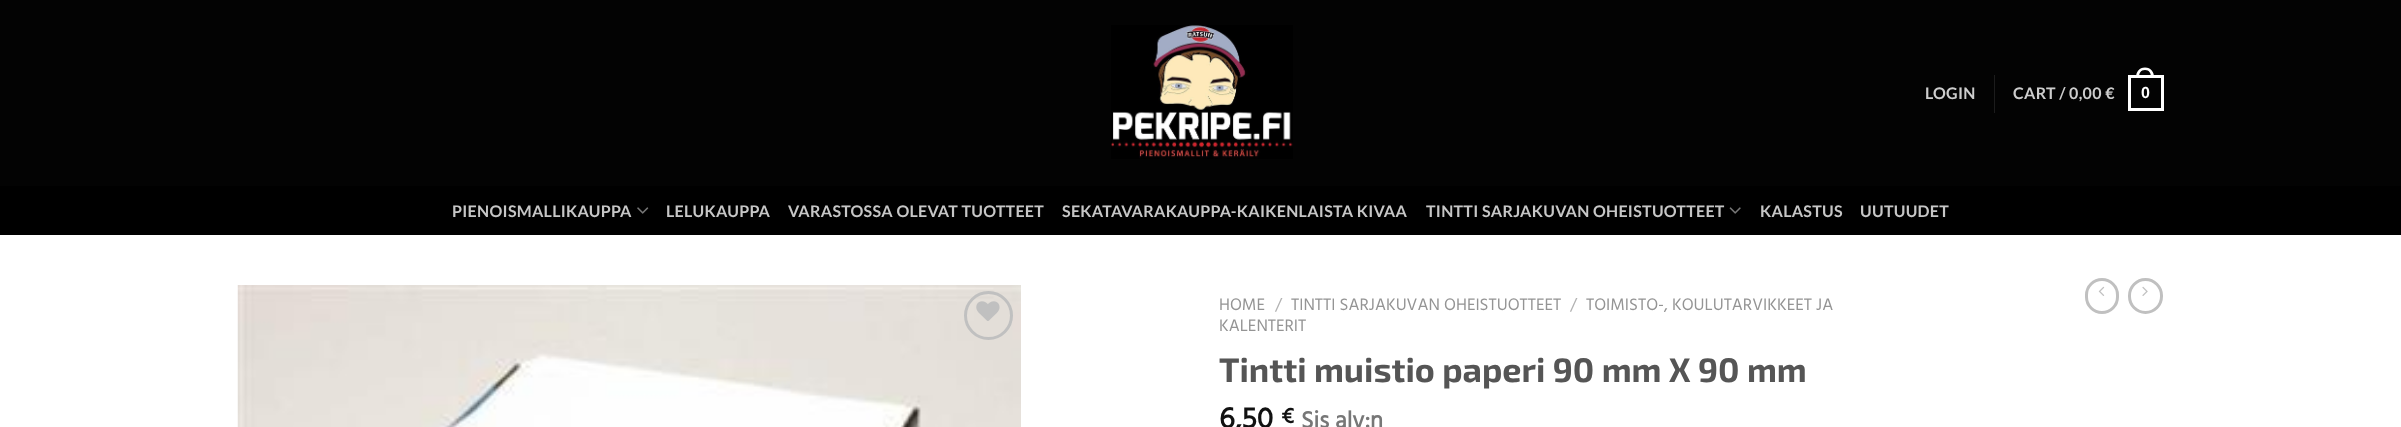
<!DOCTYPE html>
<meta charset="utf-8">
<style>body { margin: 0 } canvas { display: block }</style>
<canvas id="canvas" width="2401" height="427"></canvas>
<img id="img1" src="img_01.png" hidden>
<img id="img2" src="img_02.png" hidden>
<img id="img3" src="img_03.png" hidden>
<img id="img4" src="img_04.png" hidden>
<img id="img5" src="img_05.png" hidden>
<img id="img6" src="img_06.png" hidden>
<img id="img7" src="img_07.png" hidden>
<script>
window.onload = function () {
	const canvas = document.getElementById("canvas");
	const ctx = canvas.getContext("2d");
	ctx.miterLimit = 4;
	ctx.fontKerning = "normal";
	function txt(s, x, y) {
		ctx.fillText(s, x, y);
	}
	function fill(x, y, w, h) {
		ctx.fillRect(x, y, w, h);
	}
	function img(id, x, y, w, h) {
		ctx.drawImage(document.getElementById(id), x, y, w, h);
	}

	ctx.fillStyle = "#FFFFFF";
	fill(0, 0, 2401, 427);
	ctx.fillStyle = "#030303";
	fill(0, 0, 2401, 186);
	img("img1", 1111, 25, 182, 134);
	ctx.fillStyle = "#1C1C1C";
	fill(1994, 75, 1, 38);
	ctx.strokeStyle = "#FFFFFF";
	ctx.lineWidth = 3;
	ctx.strokeRect(2129.5, 76.5, 33, 33);
	ctx.fillStyle = "#FFFFFF";
	ctx.beginPath();
	ctx.moveTo(2145, 67.5);
	ctx.bezierCurveTo(2151, 67.5, 2154, 72, 2154, 77.5);
	ctx.lineTo(2136, 77.5);
	ctx.bezierCurveTo(2136, 72, 2139, 67.5, 2145, 67.5);
	ctx.closePath();
	ctx.moveTo(2145, 70);
	ctx.bezierCurveTo(2149.5, 70, 2151, 73.5, 2151, 77.5);
	ctx.lineTo(2139, 77.5);
	ctx.bezierCurveTo(2139, 73.5, 2140.5, 70, 2145, 70);
	ctx.closePath();
	ctx.fill("evenodd");
	ctx.fillStyle = "#000000";
	fill(0, 186, 2401, 49);
	img("img2", 637, 207, 12, 7);
	img("img3", 1729, 207, 12, 7);
	img("img4", 237, 285, 784, 142);
	ctx.beginPath();
	ctx.arc(988.5, 315.5, 23, 0, Math.PI * 2);
	ctx.strokeStyle = "#C0C0C0";
	ctx.stroke();
	img("img5", 976, 301, 24, 20);
	ctx.beginPath();
	ctx.roundRect(2086.5, 279.5, 31, 33, 15.5);
	ctx.stroke();
	img("img6", 2098, 286, 7, 10);
	ctx.beginPath();
	ctx.roundRect(2129.5, 279.5, 32, 33, 16);
	ctx.stroke();
	img("img7", 2142, 286, 6, 10);
	ctx.letterSpacing = "0.3px";
	ctx.font = "bold 16px Lato";
	ctx.fillStyle = "#CDCDCD";
	txt("LOGIN", 1925, 99);
	txt("CART / 0,00 €", 2013, 99);
	ctx.font = "bold 16px Liberation Sans";
	ctx.fillStyle = "#FFFFFF";
	txt("0", 2141, 98);
	ctx.font = "bold 16px Lato";
	ctx.fillStyle = "#C6C6C6";
	txt("PIENOISMALLIKAUPPA", 452, 217);
	txt("LELUKAUPPA", 666, 217);
	txt("VARASTOSSA OLEVAT TUOTTEET", 788, 217);
	txt("SEKATAVARAKAUPPA-KAIKENLAISTA KIVAA", 1062, 217);
	txt("TINTTI SARJAKUVAN OHEISTUOTTEET", 1426, 217);
	txt("KALASTUS", 1760, 217);
	txt("UUTUUDET", 1860, 217);
	ctx.letterSpacing = "0px";
	ctx.font = "17px Hind Guntur";
	ctx.fillStyle = "#949494";
	txt("HOME", 1219, 310);
	ctx.fillStyle = "#B2B2B2";
	txt("/", 1275, 310);
	ctx.fillStyle = "#949494";
	txt("TINTTI SARJAKUVAN OHEISTUOTTEET", 1291, 310);
	ctx.fillStyle = "#B2B2B2";
	txt("/", 1570, 310);
	ctx.fillStyle = "#949494";
	txt("TOIMISTO-, KOULUTARVIKKEET JA", 1586, 310);
	txt("KALENTERIT", 1219, 331);
	ctx.font = "bold 34px 'Exo 2'";
	ctx.fillStyle = "#555555";
	txt("Tintti muistio paperi 90 mm X 90 mm", 1219, 382);
	ctx.font = "bold 30px Hind Guntur";
	ctx.fillStyle = "#111111";
	txt("6,50", 1219, 428);
	ctx.font = "bold 22px Hind Guntur";
	txt("€", 1281, 423);
	ctx.font = "bold 24px Hind Guntur";
	ctx.fillStyle = "#777777";
	txt("Sis alv:n", 1301, 428);
};
</script>
